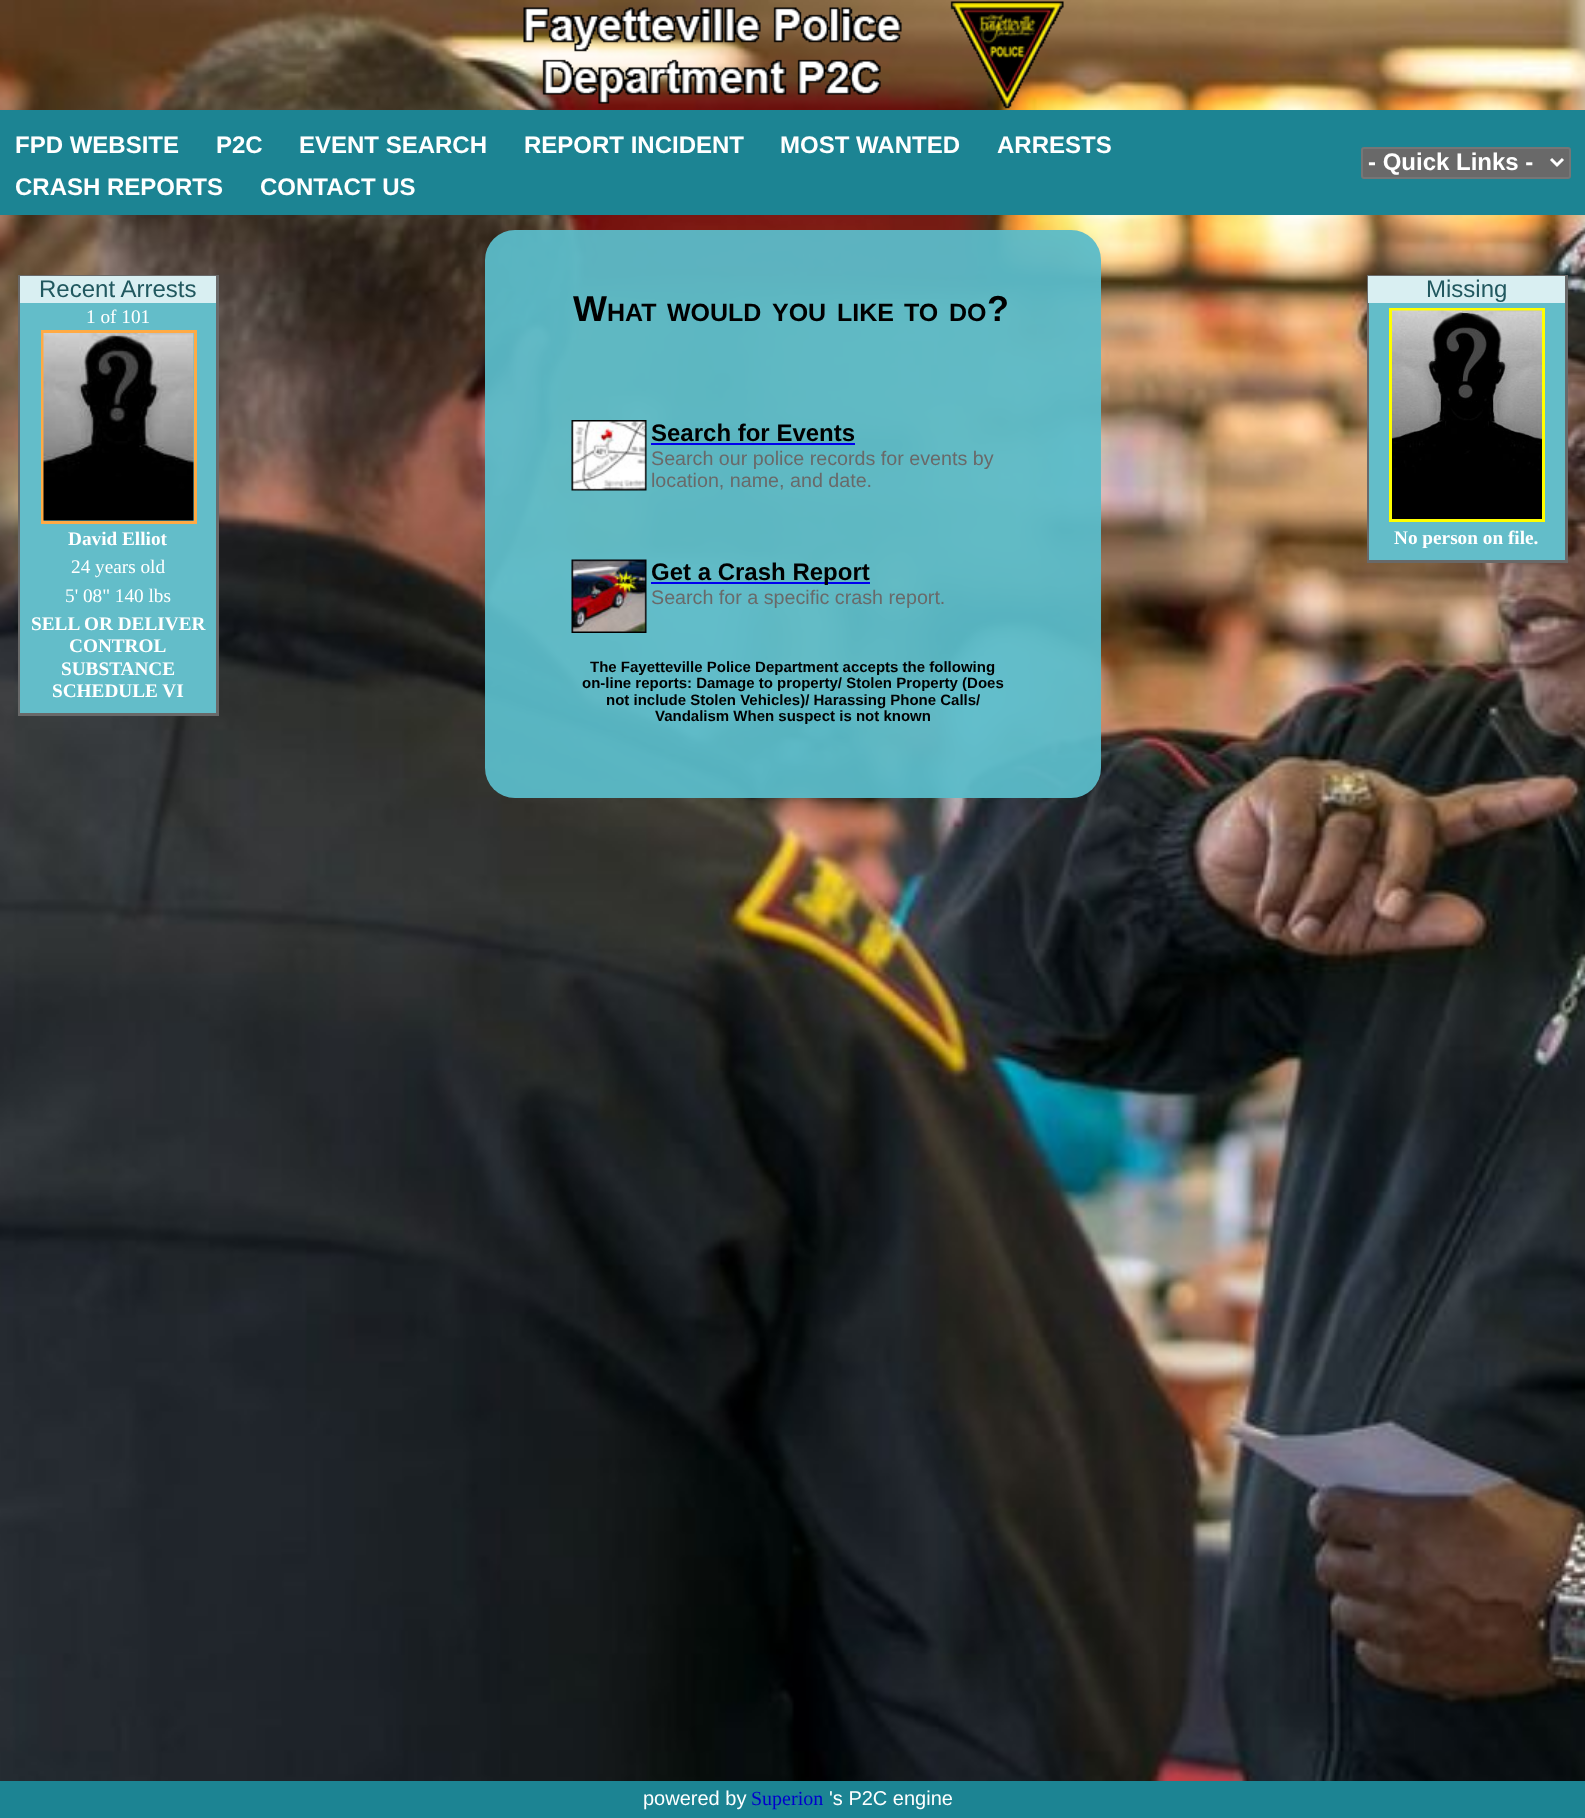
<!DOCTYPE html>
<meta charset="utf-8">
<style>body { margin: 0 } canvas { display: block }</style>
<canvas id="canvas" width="1585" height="1818"></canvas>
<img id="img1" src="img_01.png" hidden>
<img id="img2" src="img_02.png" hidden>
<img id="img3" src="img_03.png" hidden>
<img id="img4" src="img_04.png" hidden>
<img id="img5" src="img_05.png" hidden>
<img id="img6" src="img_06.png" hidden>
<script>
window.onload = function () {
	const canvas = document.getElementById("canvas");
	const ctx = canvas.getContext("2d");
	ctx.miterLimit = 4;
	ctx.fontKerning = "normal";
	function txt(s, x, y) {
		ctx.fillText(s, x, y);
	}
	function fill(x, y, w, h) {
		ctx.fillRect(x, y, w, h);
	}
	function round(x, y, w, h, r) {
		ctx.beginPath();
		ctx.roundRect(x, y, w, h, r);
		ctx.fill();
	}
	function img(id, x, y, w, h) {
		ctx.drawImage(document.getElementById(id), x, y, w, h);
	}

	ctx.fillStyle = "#FFFFFF";
	fill(0, 0, 1585, 1818);
	img("img1", 0, 0, 1585, 1781);
	img("img2", 523, 1, 541, 108);
	ctx.fillStyle = "#1C8493";
	fill(0, 110, 1585, 105);
	ctx.fillStyle = "#696969";
	ctx.beginPath();
	ctx.roundRect(1362, 148, 208, 30, 2);
	ctx.fill();
	ctx.strokeStyle = "#767676";
	ctx.lineWidth = 2;
	ctx.stroke();
	ctx.beginPath();
	ctx.moveTo(1551, 159);
	ctx.lineTo(1557, 165);
	ctx.lineTo(1563, 159);
	ctx.strokeStyle = "#FFFFFF";
	ctx.lineWidth = 3;
	ctx.stroke();
	ctx.fillStyle = "#63BDC9";
	fill(20, 303, 196, 410);
	ctx.fillStyle = "#696969";
	fill(18, 275, 201, 1);
	fill(216, 275, 3, 441);
	fill(18, 713, 201, 3);
	fill(18, 275, 2, 441);
	ctx.fillStyle = "#D9EFF2";
	fill(20, 276, 196, 27);
	ctx.strokeStyle = "#FFAA44";
	ctx.strokeRect(42.5, 331.5, 153, 191);
	img("img3", 43, 333, 151, 188);
	ctx.fillStyle = "rgba(91, 188, 201, 0.95)";
	round(485, 230, 616, 568, 30);
	img("img4", 571, 420, 76, 71);
	ctx.fillStyle = "#0000EE";
	fill(651, 443, 204, 2);
	img("img5", 571, 559, 76, 74);
	fill(651, 582, 219, 2);
	ctx.fillStyle = "#63BDC9";
	fill(1369, 303, 196, 257);
	ctx.fillStyle = "#696969";
	fill(1367, 275, 201, 1);
	fill(1565, 275, 3, 288);
	fill(1367, 560, 201, 3);
	fill(1367, 275, 2, 288);
	ctx.fillStyle = "#D9EFF2";
	fill(1368, 276, 197, 27);
	ctx.strokeStyle = "#FFFF00";
	ctx.strokeRect(1390.5, 309.5, 153, 211);
	img("img6", 1392, 310, 150, 209);
	ctx.fillStyle = "#1C8493";
	fill(0, 1781, 1585, 37);
	ctx.font = "bold 24px Liberation Sans";
	ctx.fillStyle = "#FFFFFF";
	txt("FPD WEBSITE", 15, 153);
	txt("P2C", 216, 153);
	txt("EVENT SEARCH", 299, 153);
	txt("REPORT INCIDENT", 524, 153);
	txt("MOST WANTED", 780, 153);
	txt("ARRESTS", 997, 153);
	txt("CRASH REPORTS", 15, 195);
	txt("CONTACT US", 260, 195);
	txt("- Quick Links -", 1368, 170);
	ctx.font = "24px Liberation Sans";
	ctx.fillStyle = "#21585F";
	txt("Recent Arrests", 39, 297);
	ctx.font = "19.25px Liberation Serif";
	ctx.fillStyle = "#FFFFFF";
	txt("1 of 101", 86, 323);
	ctx.font = "bold 19.25px Liberation Serif";
	txt("David Elliot", 68, 545);
	ctx.font = "19.25px Liberation Serif";
	txt("24 years old", 71, 573);
	txt("5' 08\" 140 lbs", 65, 602);
	ctx.font = "bold 19.25px Liberation Serif";
	txt("SELL OR DELIVER", 31, 630);
	txt("CONTROL", 69, 652);
	txt("SUBSTANCE", 61, 675);
	txt("SCHEDULE VI", 52, 697);
	ctx.font = "bold 36px Liberation Sans";
	ctx.fillStyle = "#000000";
	txt("W", 573, 321);
	ctx.font = "bold 25px Liberation Sans";
	txt("HAT", 607, 321);
	txt("WOULD", 667, 321);
	txt("YOU", 772, 321);
	txt("LIKE", 837, 321);
	txt("TO", 904, 321);
	txt("DO", 949, 321);
	ctx.font = "bold 36px Liberation Sans";
	txt("?", 987, 321);
	ctx.font = "bold 24px Liberation Sans";
	txt("Search for Events", 651, 441);
	ctx.font = "19.7px Liberation Sans";
	ctx.fillStyle = "#696969";
	txt("Search our police records for events by", 651, 465);
	txt("location, name, and date.", 651, 487);
	ctx.font = "bold 24px Liberation Sans";
	ctx.fillStyle = "#000000";
	txt("Get a Crash Report", 651, 580);
	ctx.font = "19.7px Liberation Sans";
	ctx.fillStyle = "#696969";
	txt("Search for a specific crash report.", 651, 604);
	ctx.font = "bold 15px Liberation Sans";
	ctx.fillStyle = "#000000";
	txt("The Fayetteville Police Department accepts the following", 590, 672);
	txt("on-line reports: Damage to property/ Stolen Property (Does", 582, 688);
	txt("not include Stolen Vehicles)/ Harassing Phone Calls/", 606, 705);
	txt("Vandalism When suspect is not known", 655, 721);
	ctx.font = "24px Liberation Sans";
	ctx.fillStyle = "#21585F";
	txt("Missing", 1426, 297);
	ctx.font = "bold 19.25px Liberation Serif";
	ctx.fillStyle = "#FFFFFF";
	txt("No person on file.", 1394, 544);
	ctx.font = "20px Liberation Sans";
	txt("powered by", 643, 1805);
	ctx.font = "20px Liberation Serif";
	ctx.fillStyle = "#0000CD";
	txt("Superion", 751, 1805);
	ctx.font = "20px Liberation Sans";
	ctx.fillStyle = "#FFFFFF";
	txt("'s P2C engine", 829, 1805);
};
</script>
